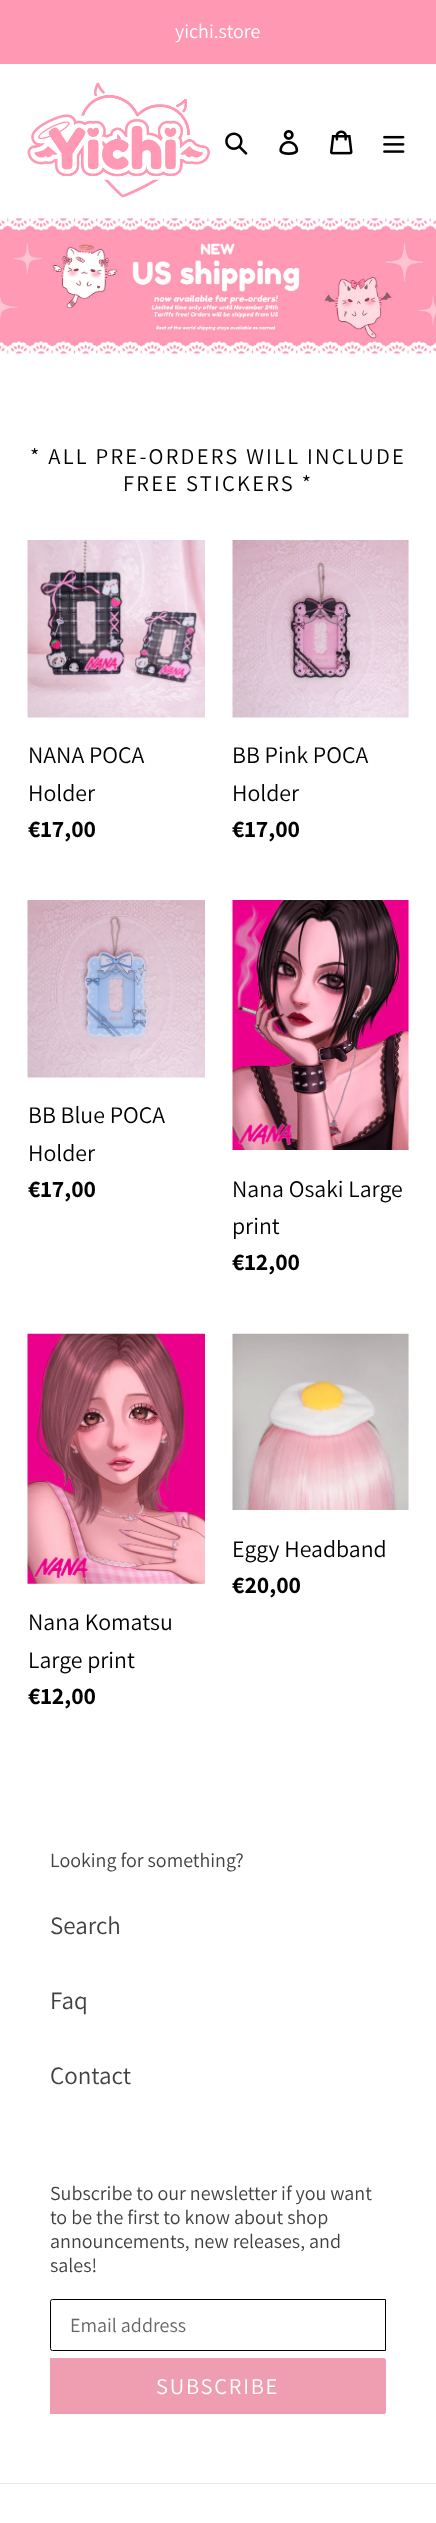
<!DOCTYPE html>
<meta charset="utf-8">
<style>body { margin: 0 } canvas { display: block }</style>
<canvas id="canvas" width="436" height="2523"></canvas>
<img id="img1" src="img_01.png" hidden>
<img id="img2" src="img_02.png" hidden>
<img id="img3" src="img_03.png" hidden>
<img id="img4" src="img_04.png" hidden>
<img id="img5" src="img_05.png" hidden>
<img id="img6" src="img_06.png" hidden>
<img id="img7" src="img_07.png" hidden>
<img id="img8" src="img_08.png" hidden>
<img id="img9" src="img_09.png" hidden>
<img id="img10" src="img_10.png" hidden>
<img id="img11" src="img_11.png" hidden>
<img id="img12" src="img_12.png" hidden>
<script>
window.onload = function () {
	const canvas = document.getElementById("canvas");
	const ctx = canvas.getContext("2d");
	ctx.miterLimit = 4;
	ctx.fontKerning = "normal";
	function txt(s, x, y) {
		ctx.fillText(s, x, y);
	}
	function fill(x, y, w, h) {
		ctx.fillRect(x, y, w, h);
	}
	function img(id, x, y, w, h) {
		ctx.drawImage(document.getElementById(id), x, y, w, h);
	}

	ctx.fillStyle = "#FFFFFF";
	fill(0, 0, 436, 2523);
	ctx.fillStyle = "#FF98B3";
	fill(0, 0, 436, 64);
	img("img1", 27, 82, 183, 116);
	img("img2", 225, 132, 23, 23);
	img("img3", 279, 130, 20, 25);
	img("img4", 330, 130, 23, 25);
	img("img5", 383, 135, 22, 18);
	img("img6", 0, 218, 436, 137);
	img("img7", 27, 540, 178, 178);
	img("img8", 232, 540, 177, 178);
	img("img9", 27, 900, 178, 178);
	img("img10", 232, 900, 177, 250);
	img("img11", 232, 1333, 177, 177);
	img("img12", 27, 1333, 178, 251);
	ctx.beginPath();
	ctx.roundRect(50.5, 2299.5, 335, 51, [2, 0, 0, 2]);
	ctx.strokeStyle = "#000000";
	ctx.stroke();
	ctx.fillStyle = "#EF9DB0";
	ctx.beginPath();
	ctx.roundRect(50, 2358, 336, 56, [0, 2.5, 2.5, 0]);
	ctx.fill();
	ctx.fillStyle = "#E6E6E6";
	fill(0, 2483, 436, 1);
	ctx.font = "20px Assistant";
	ctx.fillStyle = "#FFFFFF";
	txt("yichi.store", 175, 38);
	ctx.letterSpacing = "2.25px";
	ctx.font = "22.5px Assistant";
	ctx.fillStyle = "#000000";
	txt("* ALL PRE-ORDERS WILL INCLUDE", 30, 464);
	txt("FREE STICKERS *", 123, 491);
	ctx.letterSpacing = "0px";
	ctx.font = "23.75px Assistant";
	txt("NANA POCA", 28, 763);
	txt("Holder", 28, 801);
	ctx.font = "bold 23.75px Assistant";
	txt("€17,00", 28, 837);
	ctx.font = "23.75px Assistant";
	txt("BB Pink POCA", 232, 763);
	txt("Holder", 232, 801);
	ctx.font = "bold 23.75px Assistant";
	txt("€17,00", 232, 837);
	ctx.font = "23.75px Assistant";
	txt("BB Blue POCA", 28, 1123);
	txt("Holder", 28, 1161);
	ctx.font = "bold 23.75px Assistant";
	txt("€17,00", 28, 1197);
	ctx.font = "23.75px Assistant";
	txt("Nana Osaki Large", 232, 1197);
	txt("print", 232, 1234);
	ctx.font = "bold 23.75px Assistant";
	txt("€12,00", 232, 1270);
	ctx.font = "23.75px Assistant";
	txt("Eggy Headband", 232, 1557);
	ctx.font = "bold 23.75px Assistant";
	txt("€20,00", 232, 1593);
	ctx.font = "23.75px Assistant";
	txt("Nana Komatsu", 28, 1630);
	txt("Large print", 28, 1668);
	ctx.font = "bold 23.75px Assistant";
	txt("€12,00", 28, 1704);
	ctx.font = "20px Assistant";
	ctx.fillStyle = "#414141";
	txt("Looking for something?", 50, 1867);
	ctx.font = "25px Assistant";
	txt("Search", 50, 1934);
	txt("Faq", 50, 2009);
	txt("Contact", 50, 2084);
	ctx.font = "20px Assistant";
	txt("Subscribe to our newsletter if you want", 50, 2200);
	txt("to be the first to know about shop", 50, 2224);
	txt("announcements, new releases, and", 50, 2248);
	txt("sales!", 50, 2272);
	ctx.fillStyle = "#666666";
	txt("Email address", 70, 2332);
	ctx.letterSpacing = "1.75px";
	ctx.font = "22.5px Assistant";
	ctx.fillStyle = "#FFFFFF";
	txt("SUBSCRIBE", 156, 2394);
};
</script>
